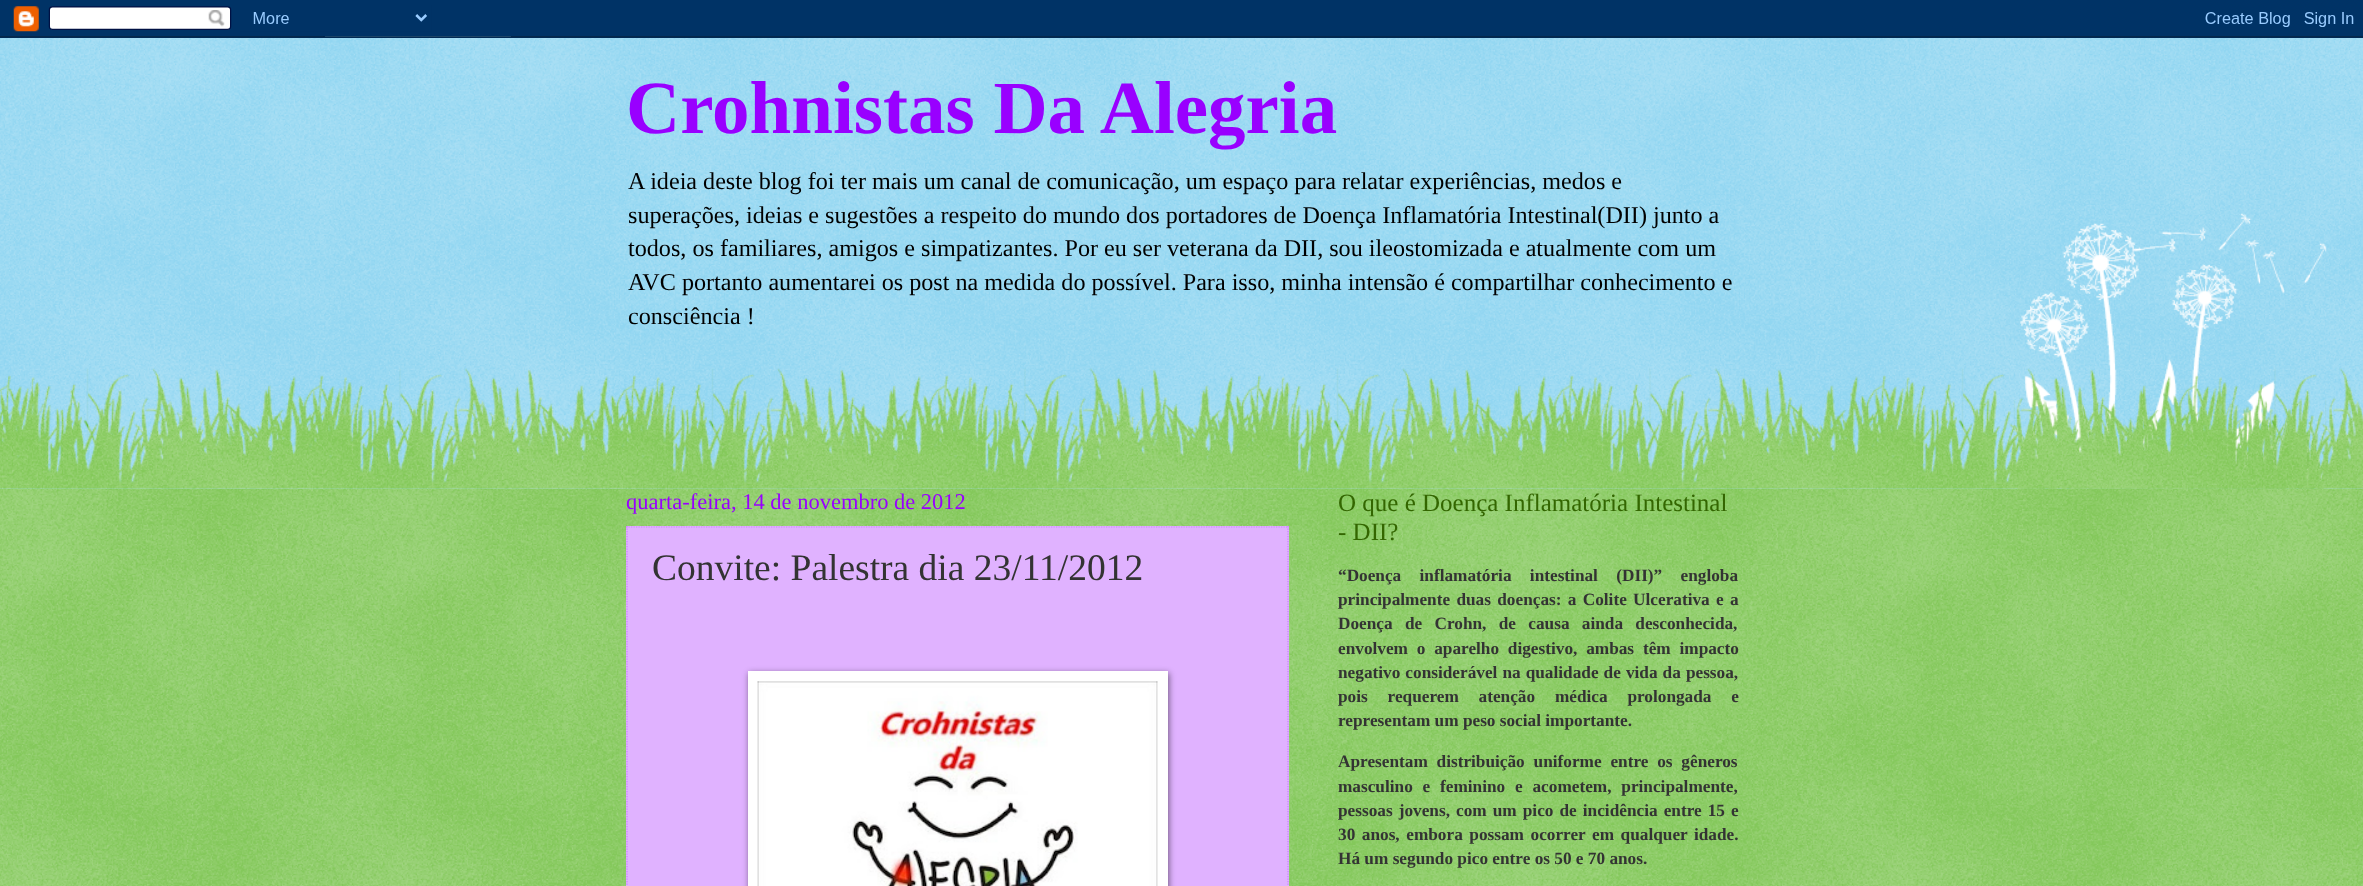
<!DOCTYPE html>
<meta charset="utf-8">
<style>body { margin: 0 } canvas { display: block }</style>
<canvas id="canvas" width="2363" height="886"></canvas>
<img id="img1" src="img_01.png" hidden>
<img id="img2" src="img_02.png" hidden>
<img id="img3" src="img_03.png" hidden>
<img id="img4" src="img_04.png" hidden>
<img id="img5" src="img_05.png" hidden>
<img id="img6" src="img_06.png" hidden>
<script>
window.onload = function () {
	const canvas = document.getElementById("canvas");
	const ctx = canvas.getContext("2d");
	ctx.miterLimit = 4;
	ctx.fontKerning = "normal";
	function txt(s, x, y) {
		ctx.fillText(s, x, y);
	}
	function fill(x, y, w, h) {
		ctx.fillRect(x, y, w, h);
	}
	function img(id, x, y, w, h) {
		ctx.drawImage(document.getElementById(id), x, y, w, h);
	}

	ctx.fillStyle = "#77CCEE";
	fill(0, 0, 2363, 886);
	img("img1", 0, 36, 2363, 453);
	img("img2", 0, 0, 2363, 38);
	ctx.fillStyle = "#66BB33";
	fill(0, 489, 2363, 397);
	img("img3", 0, 488, 2363, 398);
	img("img4", 2013, 213, 314, 276);
	img("img5", 0, 368, 2363, 121);
	ctx.fillStyle = "#E0B2FF";
	fill(626, 526, 663, 360);
	ctx.beginPath();
	ctx.moveTo(626, 527);
	ctx.lineTo(1289, 527);
	ctx.strokeStyle = "#CB7FFF";
	ctx.lineWidth = 1.2;
	ctx.setLineDash([1.25, 1.25]);
	ctx.stroke();
	ctx.beginPath();
	ctx.moveTo(1288, 526);
	ctx.lineTo(1288, 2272.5);
	ctx.stroke();
	ctx.beginPath();
	ctx.moveTo(627, 526);
	ctx.lineTo(627, 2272.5);
	ctx.stroke();
	ctx.fillStyle = "rgba(0, 0, 0, 0.5)";
	ctx.filter = "blur(3px)";
	ctx.beginPath();
	ctx.rect(749, 673, 420, 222);
	ctx.fill();
	ctx.filter = "none";
	ctx.fillStyle = "#FFFFFF";
	fill(748, 671, 420, 215);
	img("img6", 757, 681, 401, 205);
	ctx.font = "bold 75px Liberation Serif";
	ctx.fillStyle = "#9900FF";
	txt("Crohnistas Da Alegria", 626, 133);
	ctx.font = "24.15px Liberation Serif";
	ctx.fillStyle = "#000000";
	txt("A ideia deste blog foi ter mais um canal de comunicação, um espaço para relatar experiências, medos e", 628, 189);
	txt("superações, ideias e sugestões a respeito do mundo dos portadores de Doença Inflamatória Intestinal(DII) junto a", 628, 223);
	txt("todos, os familiares, amigos e simpatizantes. Por eu ser veterana da DII, sou ileostomizada e atualmente com um", 628, 256);
	txt("AVC portanto aumentarei os post na medida do possível. Para isso, minha intensão é compartilhar conhecimento e", 628, 290);
	txt("consciência !", 628, 324);
	ctx.font = "22.5px Liberation Serif";
	ctx.fillStyle = "#9900FF";
	txt("quarta-feira, 14 de novembro de 2012", 626, 509);
	ctx.font = "37.5px Liberation Serif";
	ctx.fillStyle = "#333333";
	txt("Convite: Palestra dia 23/11/2012", 652, 580);
	ctx.font = "25px Liberation Serif";
	ctx.fillStyle = "#336600";
	txt("O que é Doença Inflamatória Intestinal", 1338, 511);
	txt("- DII?", 1338, 540);
	ctx.wordSpacing = "14px";
	ctx.font = "bold 17.25px Liberation Serif";
	ctx.fillStyle = "#333333";
	txt("“Doença inflamatória intestinal (DII)” engloba", 1338, 581);
	ctx.wordSpacing = "2px";
	txt("principalmente duas doenças: a Colite Ulcerativa e a", 1338, 605);
	ctx.wordSpacing = "8px";
	txt("Doença de Crohn, de causa ainda desconhecida,", 1338, 629);
	ctx.wordSpacing = "4.5px";
	txt("envolvem o aparelho digestivo, ambas têm impacto", 1338, 654);
	ctx.wordSpacing = "0.75px";
	txt("negativo considerável na qualidade de vida da pessoa,", 1338, 678);
	ctx.wordSpacing = "15.5px";
	txt("pois requerem atenção médica prolongada e", 1338, 702);
	ctx.wordSpacing = "0px";
	txt("representam um peso social importante.", 1338, 726);
	ctx.wordSpacing = "4.5px";
	txt("Apresentam distribuição uniforme entre os gêneros", 1338, 767);
	ctx.wordSpacing = "5.5px";
	txt("masculino e feminino e acometem, principalmente,", 1338, 792);
	ctx.wordSpacing = "1.75px";
	txt("pessoas jovens, com um pico de incidência entre 15 e", 1338, 816);
	ctx.wordSpacing = "2.25px";
	txt("30 anos, embora possam ocorrer em qualquer idade.", 1338, 840);
	ctx.wordSpacing = "0px";
	txt("Há um segundo pico entre os 50 e 70 anos.", 1338, 864);
};
</script>
